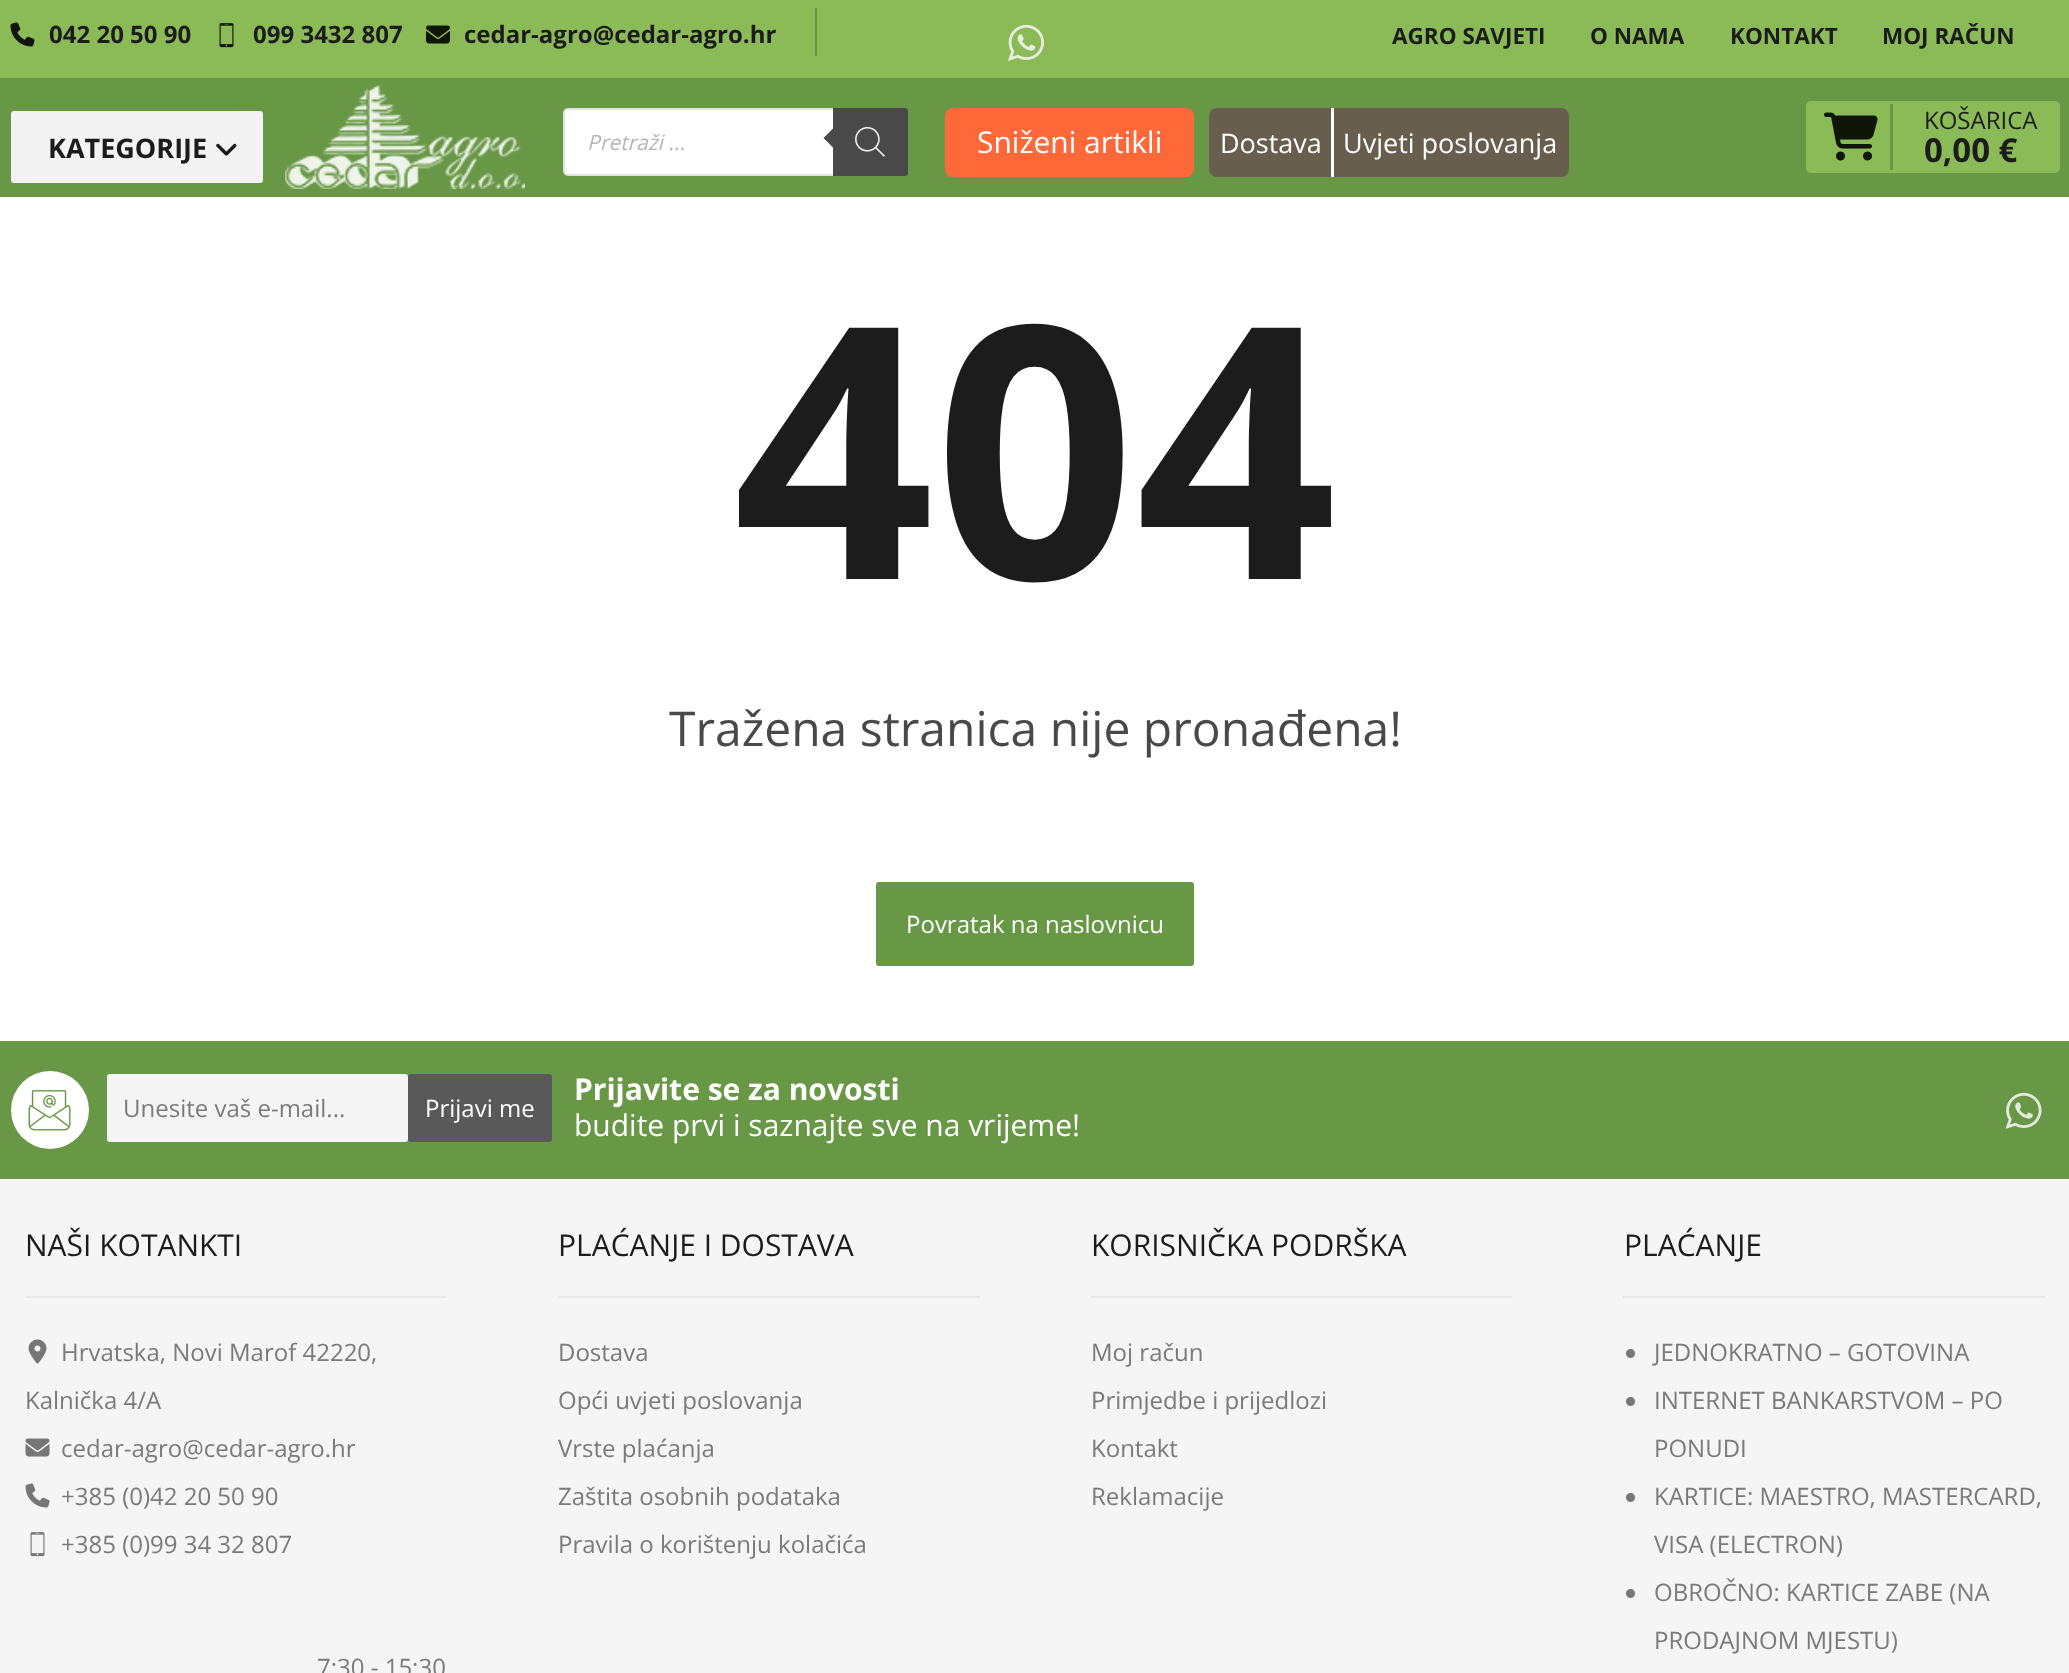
<!DOCTYPE html>
<meta charset="utf-8">
<style>body { margin: 0 } canvas { display: block }</style>
<canvas id="canvas" width="2069" height="1673"></canvas>
<img id="img1" src="img_01.png" hidden>
<img id="img2" src="img_02.png" hidden>
<img id="img3" src="img_03.png" hidden>
<img id="img4" src="img_04.png" hidden>
<img id="img5" src="img_05.png" hidden>
<img id="img6" src="img_06.png" hidden>
<img id="img7" src="img_07.png" hidden>
<img id="img8" src="img_08.png" hidden>
<img id="img9" src="img_09.png" hidden>
<img id="img10" src="img_10.png" hidden>
<img id="img11" src="img_11.png" hidden>
<img id="img12" src="img_12.png" hidden>
<img id="img13" src="img_13.png" hidden>
<img id="img14" src="img_14.png" hidden>
<script>
window.onload = function () {
	const canvas = document.getElementById("canvas");
	const ctx = canvas.getContext("2d");
	ctx.miterLimit = 4;
	ctx.fontKerning = "normal";
	function txt(s, x, y) {
		ctx.fillText(s, x, y);
	}
	function fill(x, y, w, h) {
		ctx.fillRect(x, y, w, h);
	}
	function round(x, y, w, h, r) {
		ctx.beginPath();
		ctx.roundRect(x, y, w, h, r);
		ctx.fill();
	}
	function img(id, x, y, w, h) {
		ctx.drawImage(document.getElementById(id), x, y, w, h);
	}

	ctx.fillStyle = "#FFFFFF";
	fill(0, 0, 2069, 1673);
	ctx.fillStyle = "#8ABB57";
	fill(0, 0, 2069, 78);
	img("img1", 10, 22, 25, 25);
	img("img2", 219, 23, 15, 25);
	img("img3", 426, 25, 24, 19);
	ctx.fillStyle = "#689846";
	fill(815, 8, 2, 48);
	img("img4", 1008, 24, 36, 37);
	fill(0, 78, 2069, 119);
	ctx.fillStyle = "#F3F3F3";
	round(11, 111, 252, 72, 3);
	img("img5", 216, 143, 21, 13);
	img("img6", 285, 85, 240, 104);
	ctx.fillStyle = "#FFFFFF";
	ctx.beginPath();
	ctx.roundRect(564, 109, 343, 66, 4);
	ctx.fill();
	ctx.strokeStyle = "#E1E1E1";
	ctx.lineWidth = 2;
	ctx.stroke();
	ctx.fillStyle = "#494949";
	ctx.beginPath();
	ctx.roundRect(833, 108, 75, 68, [0, 3, 3, 0]);
	ctx.fill();
	ctx.beginPath();
	ctx.moveTo(835.5, 126);
	ctx.lineTo(835.5, 150);
	ctx.lineTo(823.5, 138);
	ctx.closePath();
	ctx.fill();
	img("img7", 855, 126, 30, 31);
	ctx.fillStyle = "#FF693A";
	round(945, 108, 249, 69, 8);
	ctx.fillStyle = "#685E4D";
	ctx.beginPath();
	ctx.roundRect(1209, 108, 122, 69, [8, 0, 0, 8]);
	ctx.fill();
	ctx.fillStyle = "#FFFFFF";
	fill(1331, 108, 3, 69);
	ctx.fillStyle = "#685E4D";
	ctx.beginPath();
	ctx.roundRect(1334, 108, 235, 69, [0, 8, 8, 0]);
	ctx.fill();
	ctx.fillStyle = "#8ABB57";
	round(1806, 101, 254, 72, 5);
	ctx.fillStyle = "#689846";
	fill(1890, 104, 3, 66);
	img("img8", 1824, 112, 54, 49);
	round(876, 882, 318, 84, 3);
	fill(0, 1041, 2069, 138);
	ctx.fillStyle = "#FFFFFF";
	ctx.beginPath();
	ctx.arc(50, 1110, 39, 0, Math.PI * 2);
	ctx.fill();
	img("img9", 28, 1090, 43, 41);
	ctx.fillStyle = "#F5F5F5";
	round(107, 1074, 301, 68, 3);
	ctx.fillStyle = "#595959";
	round(408, 1074, 144, 68, 3);
	img("img10", 2005, 1092, 37, 37);
	ctx.fillStyle = "#F5F5F5";
	fill(0, 1179, 2069, 494);
	ctx.fillStyle = "#E7E7E7";
	fill(26, 1296, 420, 2);
	img("img11", 28, 1339, 19, 25);
	img("img12", 25, 1438, 25, 19);
	img("img13", 25, 1483, 25, 25);
	img("img14", 30, 1532, 15, 25);
	fill(558, 1296, 422, 2);
	fill(1091, 1296, 421, 2);
	fill(1623, 1296, 422, 2);
	ctx.fillStyle = "#777777";
	ctx.beginPath();
	ctx.arc(1630.5, 1353.5, 4.5, 0, Math.PI * 2);
	ctx.fill();
	ctx.beginPath();
	ctx.arc(1630.5, 1401.5, 4.5, 0, Math.PI * 2);
	ctx.fill();
	ctx.beginPath();
	ctx.arc(1630.5, 1497.5, 4.5, 0, Math.PI * 2);
	ctx.fill();
	ctx.beginPath();
	ctx.arc(1630.5, 1593.5, 4.5, 0, Math.PI * 2);
	ctx.fill();
	ctx.font = "bold 24px Open Sans";
	ctx.fillStyle = "#1C1C1C";
	txt("042 20 50 90", 49, 43);
	txt("099 3432 807", 253, 43);
	txt("cedar-agro@cedar-agro.hr", 464, 43);
	ctx.font = "bold 22.5px Open Sans";
	txt("AGRO SAVJETI", 1392, 44);
	txt("O NAMA", 1590, 44);
	txt("KONTAKT", 1730, 44);
	txt("MOJ RAČUN", 1882, 44);
	ctx.font = "bold 27px Open Sans";
	txt("KATEGORIJE", 48, 158);
	ctx.font = "italic 21px Open Sans";
	ctx.fillStyle = "#B6B6B6";
	txt("Pretraži ...", 587, 150);
	ctx.font = "30px Open Sans";
	ctx.fillStyle = "#FFFFFF";
	txt("Sniženi artikli", 977, 153);
	ctx.font = "27px Open Sans";
	txt("Dostava", 1220, 153);
	txt("Uvjeti poslovanja", 1343, 153);
	ctx.font = "24px Open Sans";
	ctx.fillStyle = "#1C1C1C";
	txt("KOŠARICA", 1924, 129);
	ctx.font = "bold 33px Open Sans";
	txt("0,00 €", 1924, 162);
	ctx.font = "bold 352px Open Sans";
	txt("404", 733, 579);
	ctx.font = "48px Open Sans";
	ctx.fillStyle = "#494949";
	txt("Tražena stranica nije pronađena!", 669, 746);
	ctx.font = "24px Open Sans";
	ctx.fillStyle = "#FFFFFF";
	txt("Povratak na naslovnicu", 906, 933);
	ctx.fillStyle = "#7A7A7A";
	txt("Unesite vaš e-mail...", 123, 1117);
	ctx.fillStyle = "#FFFFFF";
	txt("Prijavi me", 425, 1117);
	ctx.font = "bold 30px Open Sans";
	txt("Prijavite se za novosti", 574, 1100);
	ctx.font = "30px Open Sans";
	txt("budite prvi i saznajte sve na vrijeme!", 574, 1136);
	ctx.fillStyle = "#1C1C1C";
	txt("NAŠI KOTANKTI", 25, 1256);
	ctx.font = "24px Open Sans";
	ctx.fillStyle = "#7A7A7A";
	txt("Hrvatska, Novi Marof 42220,", 61, 1361);
	txt("Kalnička 4/A", 25, 1409);
	txt("cedar-agro@cedar-agro.hr", 61, 1457);
	txt("+385 (0)42 20 50 90", 61, 1505);
	txt("+385 (0)99 34 32 807", 61, 1553);
	txt("7:30 - 15:30", 317, 1676);
	ctx.font = "30px Open Sans";
	ctx.fillStyle = "#1C1C1C";
	txt("PLAĆANJE I DOSTAVA", 558, 1256);
	ctx.font = "24px Open Sans";
	ctx.fillStyle = "#7A7A7A";
	txt("Dostava", 558, 1361);
	txt("Opći uvjeti poslovanja", 558, 1409);
	txt("Vrste plaćanja", 558, 1457);
	txt("Zaštita osobnih podataka", 558, 1505);
	txt("Pravila o korištenju kolačića", 558, 1553);
	ctx.font = "30px Open Sans";
	ctx.fillStyle = "#1C1C1C";
	txt("KORISNIČKA PODRŠKA", 1091, 1256);
	ctx.font = "24px Open Sans";
	ctx.fillStyle = "#7A7A7A";
	txt("Moj račun", 1091, 1361);
	txt("Primjedbe i prijedlozi", 1091, 1409);
	txt("Kontakt", 1091, 1457);
	txt("Reklamacije", 1091, 1505);
	ctx.font = "30px Open Sans";
	ctx.fillStyle = "#1C1C1C";
	txt("PLAĆANJE", 1624, 1256);
	ctx.font = "24px Open Sans";
	ctx.fillStyle = "#7A7A7A";
	txt("JEDNOKRATNO – GOTOVINA", 1654, 1361);
	txt("INTERNET BANKARSTVOM – PO", 1654, 1409);
	txt("PONUDI", 1654, 1457);
	txt("KARTICE: MAESTRO, MASTERCARD,", 1654, 1505);
	txt("VISA (ELECTRON)", 1654, 1553);
	txt("OBROČNO: KARTICE ZABE (NA", 1654, 1601);
	txt("PRODAJNOM MJESTU)", 1654, 1649);
};
</script>
